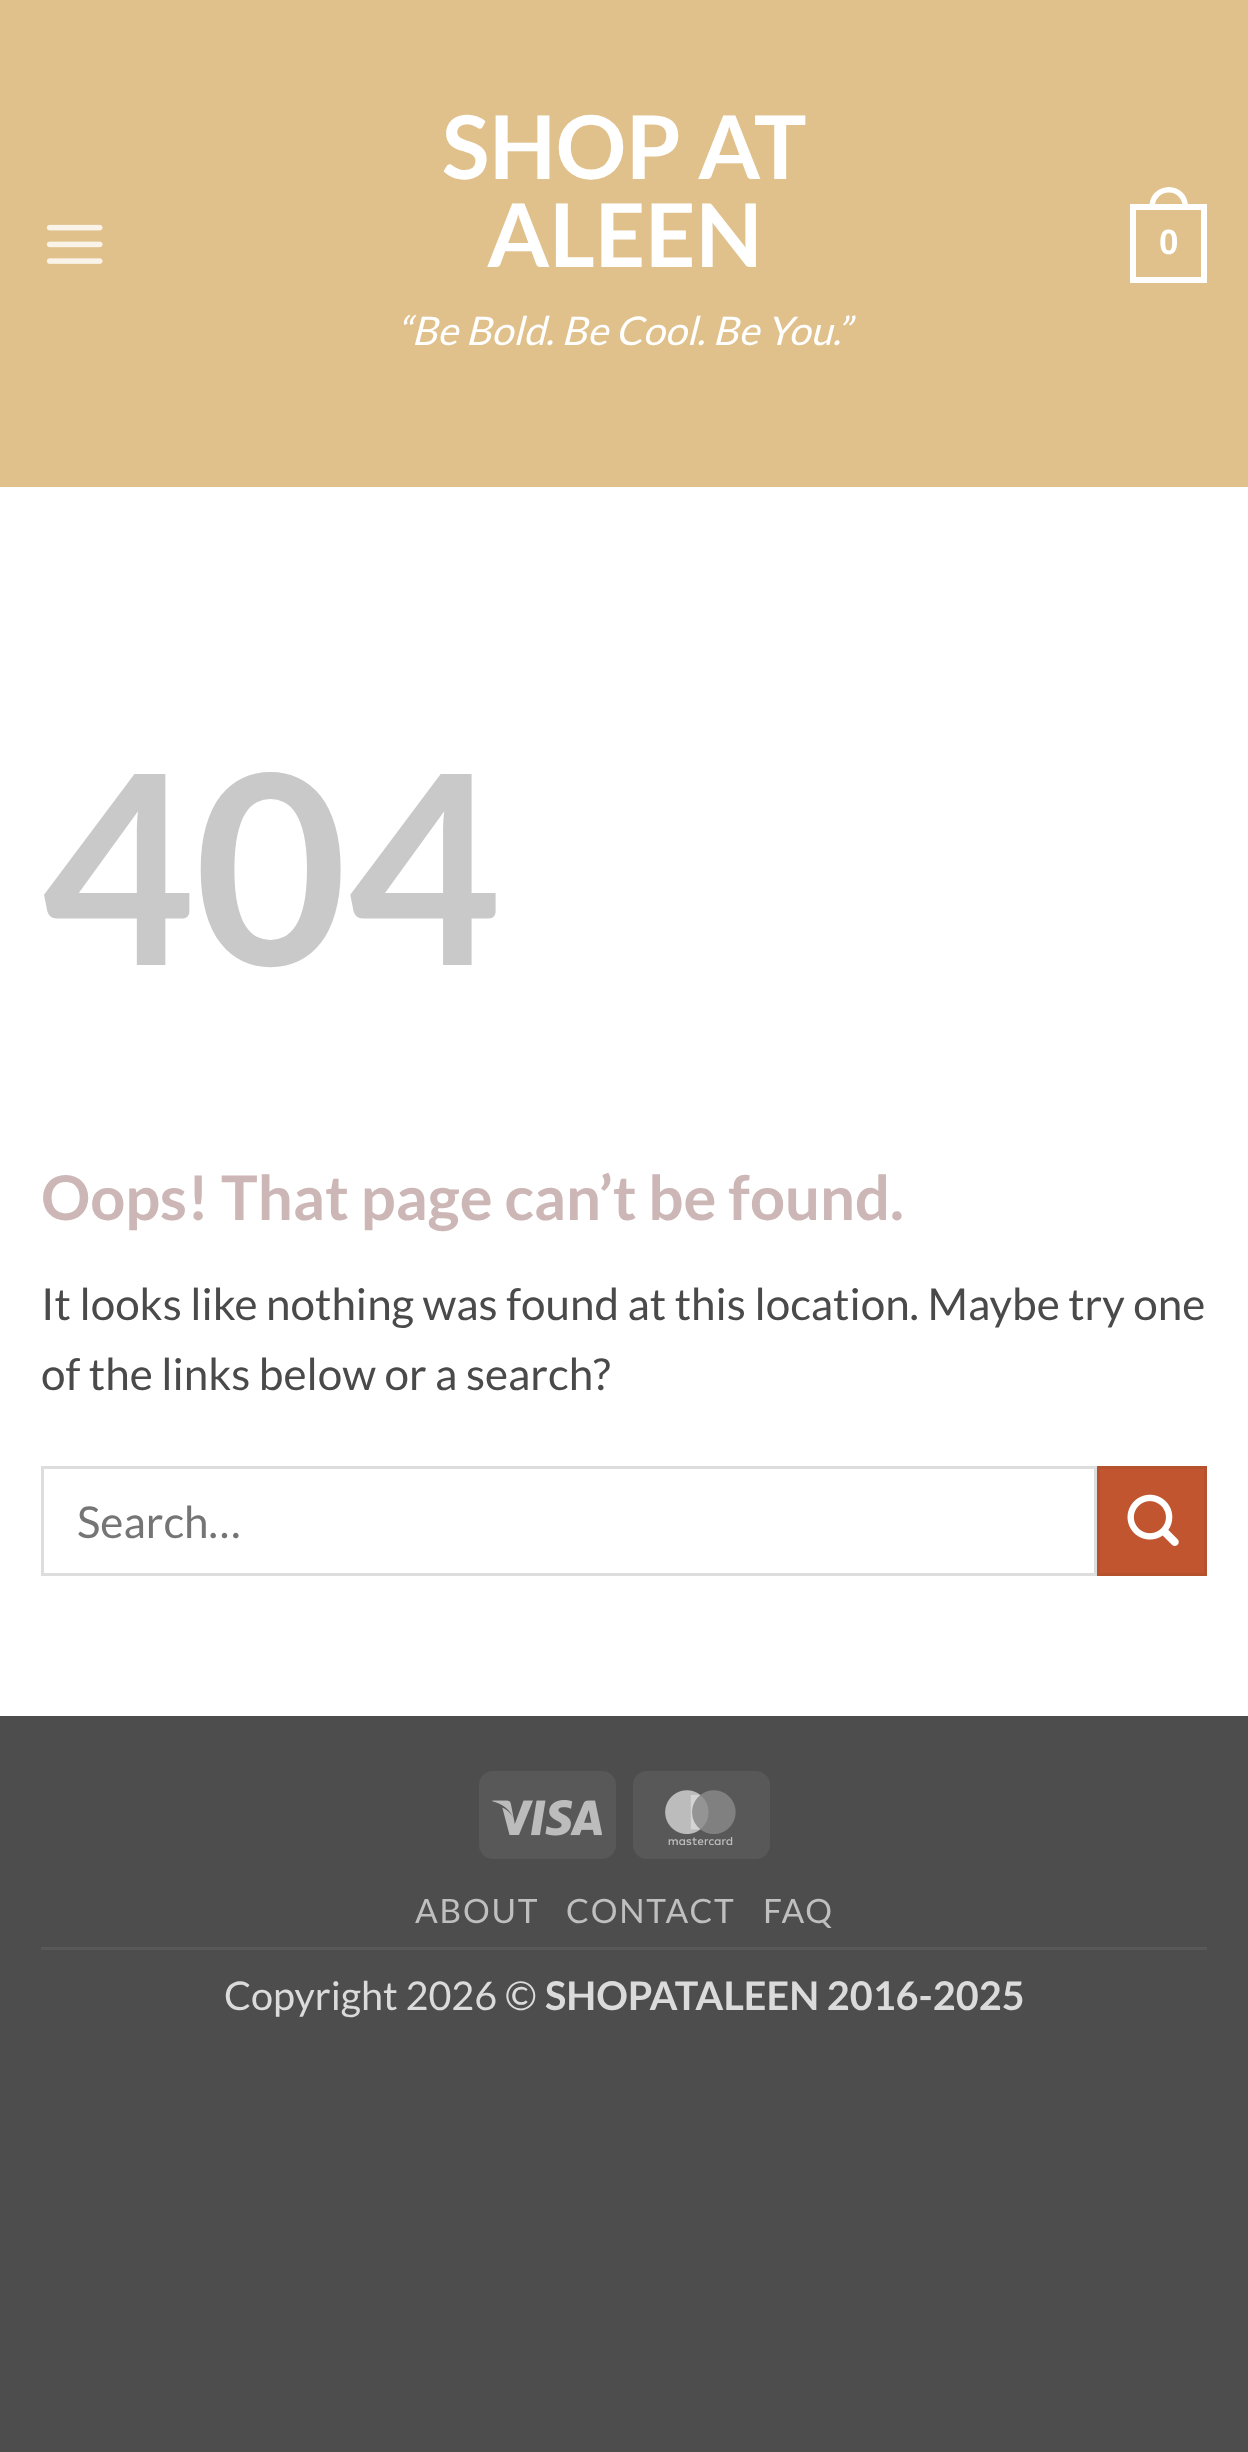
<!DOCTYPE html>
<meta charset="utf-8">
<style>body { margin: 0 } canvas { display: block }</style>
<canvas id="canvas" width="1248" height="2452"></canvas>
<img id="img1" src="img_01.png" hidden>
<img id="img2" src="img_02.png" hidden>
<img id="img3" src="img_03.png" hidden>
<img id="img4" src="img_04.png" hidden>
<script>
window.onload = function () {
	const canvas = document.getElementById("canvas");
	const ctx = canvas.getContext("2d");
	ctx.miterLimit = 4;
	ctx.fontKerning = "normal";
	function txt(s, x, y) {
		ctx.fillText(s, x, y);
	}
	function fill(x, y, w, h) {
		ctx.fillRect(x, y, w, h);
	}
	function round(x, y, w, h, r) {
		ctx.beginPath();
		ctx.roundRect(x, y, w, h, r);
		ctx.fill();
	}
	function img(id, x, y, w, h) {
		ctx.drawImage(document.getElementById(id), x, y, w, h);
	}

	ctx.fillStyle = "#4D4D4D";
	fill(0, 0, 1248, 2452);
	ctx.fillStyle = "#FFFFFF";
	fill(0, 487, 1248, 1229);
	ctx.fillStyle = "#E0C08B";
	fill(0, 0, 1248, 487);
	img("img1", 46, 224, 57, 40);
	ctx.strokeStyle = "#FFFFFF";
	ctx.lineWidth = 6;
	ctx.strokeRect(1133, 207, 71, 73);
	ctx.fillStyle = "#FFFFFF";
	ctx.beginPath();
	ctx.moveTo(1169, 187);
	ctx.bezierCurveTo(1179.5, 187, 1188, 195.5, 1188, 206);
	ctx.lineTo(1188, 209);
	ctx.lineTo(1149.5, 209);
	ctx.lineTo(1149.5, 206);
	ctx.bezierCurveTo(1149.5, 195.5, 1158, 187, 1169, 187);
	ctx.closePath();
	ctx.moveTo(1169, 192.5);
	ctx.bezierCurveTo(1176.5, 192.5, 1182.5, 198.5, 1182.5, 206);
	ctx.lineTo(1182.5, 209);
	ctx.lineTo(1155, 209);
	ctx.lineTo(1155, 206);
	ctx.bezierCurveTo(1155, 198.5, 1161, 192.5, 1169, 192.5);
	ctx.closePath();
	ctx.fill("evenodd");
	ctx.strokeStyle = "#DDDDDD";
	ctx.lineWidth = 3;
	ctx.strokeRect(42.5, 1467.5, 1053, 107);
	ctx.fillStyle = "#C05530";
	ctx.beginPath();
	ctx.rect(1098.5, 1467.5, 107, 107);
	ctx.fill();
	ctx.strokeStyle = "#B6512E";
	ctx.stroke();
	img("img2", 1127, 1494, 52, 52);
	ctx.fillStyle = "#585858";
	round(479, 1771, 137, 88, 14);
	img("img3", 492, 1800, 110, 36);
	round(633, 1771, 137, 88, 14);
	img("img4", 665, 1790, 71, 55);
	fill(41, 1947, 1166, 3);
	ctx.font = "bold 88px Lato";
	ctx.fillStyle = "#FFFFFF";
	txt("SHOP AT", 442, 179);
	txt("ALEEN", 487, 267);
	ctx.font = "italic 39.6px Lato";
	txt("“Be Bold. Be Cool. Be You.”", 397, 345);
	ctx.font = "bold 35px Liberation Sans";
	txt("0", 1159, 254);
	ctx.font = "bold 264px Lato";
	ctx.fillStyle = "#C9C9C9";
	txt("404", 41, 965);
	ctx.font = "bold 61.6px Lato";
	ctx.fillStyle = "#CCB6B6";
	txt("Oops! That page can’t be found.", 41, 1220);
	ctx.font = "44px Lato";
	ctx.fillStyle = "#4A4A4A";
	txt("It looks like nothing was found at this location. Maybe try one", 41, 1320);
	txt("of the links below or a search?", 41, 1390);
	ctx.fillStyle = "#757575";
	txt("Search…", 77, 1538);
	ctx.letterSpacing = "1.75px";
	ctx.font = "33.5px Lato";
	ctx.fillStyle = "#BFBFBF";
	txt("ABOUT", 415, 1923);
	txt("CONTACT", 566, 1923);
	txt("FAQ", 763, 1923);
	ctx.letterSpacing = "0px";
	ctx.font = "39.6px Lato";
	ctx.fillStyle = "#DBDBDB";
	txt("Copyright 2026 ©", 224, 2010);
	ctx.font = "bold 39.6px Lato";
	txt("SHOPATALEEN 2016-2025", 545, 2010);
};
</script>
